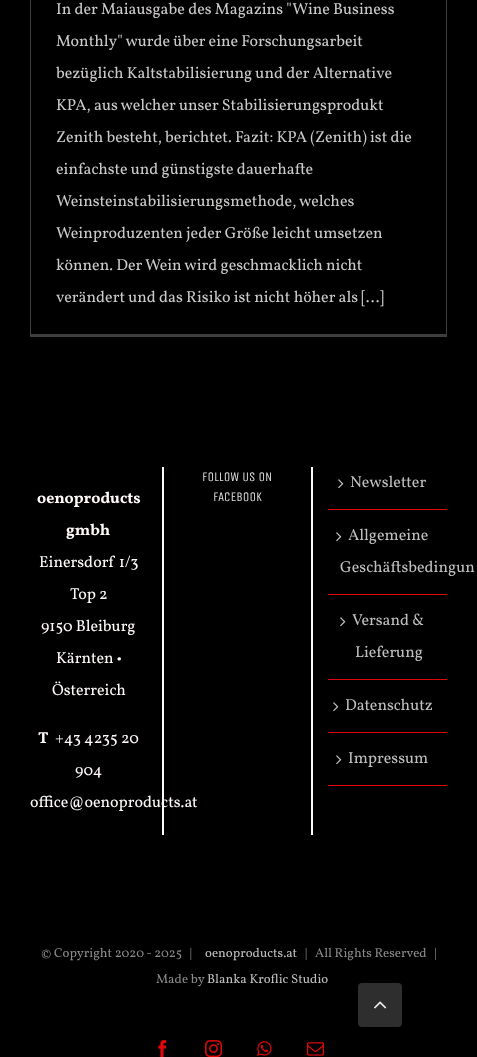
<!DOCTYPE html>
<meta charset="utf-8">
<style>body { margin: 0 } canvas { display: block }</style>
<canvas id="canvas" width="477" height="1057"></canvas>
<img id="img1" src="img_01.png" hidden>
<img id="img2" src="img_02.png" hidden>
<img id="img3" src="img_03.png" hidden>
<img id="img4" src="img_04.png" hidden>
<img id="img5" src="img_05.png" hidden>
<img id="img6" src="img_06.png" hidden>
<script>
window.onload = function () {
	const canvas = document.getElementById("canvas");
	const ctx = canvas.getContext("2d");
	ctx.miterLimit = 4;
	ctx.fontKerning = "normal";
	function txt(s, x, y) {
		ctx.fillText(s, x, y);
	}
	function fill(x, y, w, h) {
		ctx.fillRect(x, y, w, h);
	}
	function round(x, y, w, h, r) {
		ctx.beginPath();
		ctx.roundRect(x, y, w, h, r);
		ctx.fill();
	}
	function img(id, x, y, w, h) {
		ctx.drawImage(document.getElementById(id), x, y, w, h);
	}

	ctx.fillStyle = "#000000";
	fill(0, 0, 477, 1057);
	ctx.fillStyle = "#3E3E3E";
	fill(446, 0, 1, 337);
	fill(30, 334, 417, 3);
	fill(30, 0, 1, 337);
	ctx.fillStyle = "#FFF9F9";
	fill(162, 467, 2, 368);
	fill(311, 467, 2, 368);
	ctx.fillStyle = "#E10707";
	fill(328, 509, 119, 1);
	img("img1", 338, 479, 6, 10);
	fill(328, 594, 119, 1);
	img("img1", 336, 532, 6, 10);
	fill(328, 679, 119, 1);
	img("img1", 340, 617, 6, 10);
	fill(328, 732, 119, 1);
	img("img1", 333, 702, 6, 10);
	fill(328, 785, 119, 1);
	img("img1", 336, 755, 6, 10);
	img("img2", 158, 1040, 9, 17);
	img("img3", 205, 1040, 17, 17);
	img("img4", 257, 1041, 15, 15);
	img("img5", 307, 1042, 17, 14);
	ctx.fillStyle = "#2E2E2E";
	round(358, 983, 44, 44, 4);
	img("img6", 374, 1001, 13, 8);
	ctx.font = "16px Vollkorn";
	ctx.fillStyle = "#CCCAC9";
	txt("In der Maiausgabe des Magazins \"Wine Business", 56, 14);
	txt("Monthly\" wurde über eine Forschungsarbeit", 56, 46);
	txt("bezüglich Kaltstabilisierung und der Alternative", 56, 78);
	txt("KPA, aus welcher unser Stabilisierungsprodukt", 56, 110);
	txt("Zenith besteht, berichtet. Fazit: KPA (Zenith) ist die", 56, 142);
	txt("einfachste und günstigste dauerhafte", 56, 174);
	txt("Weinsteinstabilisierungsmethode, welches", 56, 206);
	txt("Weinproduzenten jeder Größe leicht umsetzen", 56, 238);
	txt("können. Der Wein wird geschmacklich nicht", 56, 270);
	txt("verändert und das Risiko ist nicht höher als [...]", 56, 302);
	ctx.font = "bold 16px Vollkorn";
	ctx.fillStyle = "#FFF9F9";
	txt("oenoproducts", 37, 503);
	txt("gmbh", 66, 535);
	ctx.font = "16px Vollkorn";
	txt("Einersdorf 1/3", 39, 567);
	txt("Top 2", 70, 599);
	txt("9150 Bleiburg", 41, 631);
	txt("Kärnten •", 56, 663);
	txt("Österreich", 52, 695);
	ctx.font = "bold 16px Vollkorn";
	txt("T", 38, 743);
	ctx.font = "16px Vollkorn";
	txt("+43 4235 20", 55, 743);
	txt("904", 75, 775);
	txt("office@oenoproducts.at", 30, 807);
	ctx.font = "13px Unica One";
	ctx.fillStyle = "#DDDDDD";
	txt("FOLLOW US ON", 202, 481);
	txt("FACEBOOK", 213, 501);
	ctx.font = "16px Vollkorn";
	ctx.fillStyle = "#BFBFBF";
	txt("Newsletter", 350, 487);
	txt("Allgemeine", 348, 540);
	txt("Geschäftsbedingun", 340, 572);
	txt("Versand &", 352, 625);
	txt("Lieferung", 355, 657);
	txt("Datenschutz", 345, 710);
	txt("Impressum", 348, 763);
	ctx.font = "13px Vollkorn";
	ctx.fillStyle = "#8C8989";
	txt("© Copyright 2020 - 2025   |", 41, 957);
	ctx.fillStyle = "#BFBFBF";
	txt("oenoproducts.at", 205, 957);
	ctx.fillStyle = "#8C8989";
	txt("|   All Rights Reserved   |", 305, 957);
	txt("Made by", 156, 983);
	ctx.fillStyle = "#BFBFBF";
	txt("Blanka Kroflic Studio", 207, 983);
};
</script>
